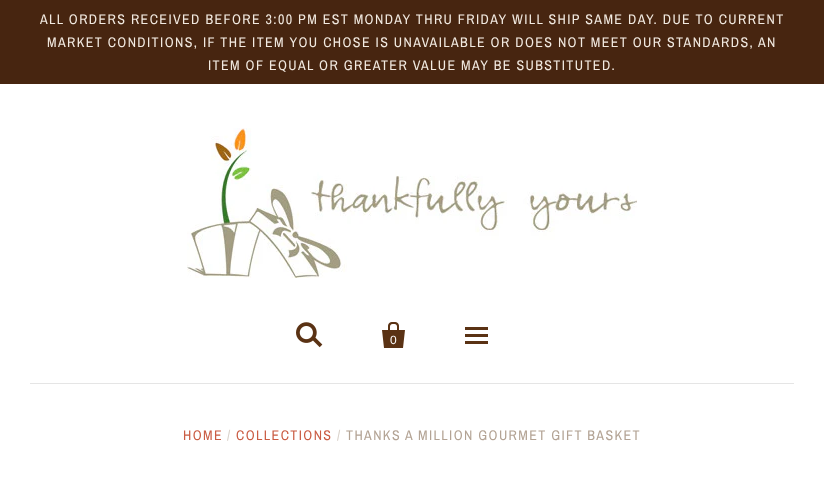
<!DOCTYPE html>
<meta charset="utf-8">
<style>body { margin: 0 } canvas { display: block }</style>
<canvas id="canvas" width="824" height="501"></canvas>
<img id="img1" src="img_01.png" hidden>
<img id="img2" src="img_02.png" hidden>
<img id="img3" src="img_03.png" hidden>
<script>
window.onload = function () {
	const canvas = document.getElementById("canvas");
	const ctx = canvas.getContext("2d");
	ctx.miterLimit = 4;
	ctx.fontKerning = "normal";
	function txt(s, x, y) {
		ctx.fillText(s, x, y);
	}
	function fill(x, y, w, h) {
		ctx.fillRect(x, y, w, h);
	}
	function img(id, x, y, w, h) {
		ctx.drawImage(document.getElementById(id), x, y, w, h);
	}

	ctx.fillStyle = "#FFFFFF";
	fill(0, 0, 824, 501);
	ctx.fillStyle = "#472510";
	fill(0, 0, 824, 84);
	ctx.fillStyle = "#E5E5E5";
	fill(30, 383, 764, 1);
	img("img1", 187, 128, 450, 150);
	img("img2", 296, 322, 27, 26);
	img("img3", 382, 322, 23, 26);
	ctx.fillStyle = "#5A3214";
	fill(465, 334, 23, 3);
	fill(465, 327, 23, 3);
	fill(465, 341, 23, 3);
	ctx.letterSpacing = "1.4px";
	ctx.font = "14px Archivo Narrow";
	ctx.fillStyle = "#F2EAE1";
	txt("ALL ORDERS RECEIVED BEFORE 3:00 PM EST MONDAY THRU FRIDAY WILL SHIP SAME DAY. DUE TO CURRENT", 40, 24);
	txt("MARKET CONDITIONS, IF THE ITEM YOU CHOSE IS UNAVAILABLE OR DOES NOT MEET OUR STANDARDS, AN", 47, 47);
	txt("ITEM OF EQUAL OR GREATER VALUE MAY BE SUBSTITUTED.", 208, 70);
	ctx.letterSpacing = "0px";
	ctx.font = "12px Liberation Sans";
	ctx.fillStyle = "#FFFFFF";
	txt("0", 390, 344);
	ctx.letterSpacing = "1.4px";
	ctx.font = "14px Archivo Narrow";
	ctx.fillStyle = "#CA5C43";
	txt("HOME", 183, 440);
	ctx.fillStyle = "#D9D1C9";
	txt("/", 227, 440);
	ctx.fillStyle = "#CA5C43";
	txt("COLLECTIONS", 236, 440);
	ctx.fillStyle = "#D9D1C9";
	txt("/", 337, 440);
	ctx.fillStyle = "#B3A394";
	txt("THANKS A MILLION GOURMET GIFT BASKET", 346, 440);
};
</script>
